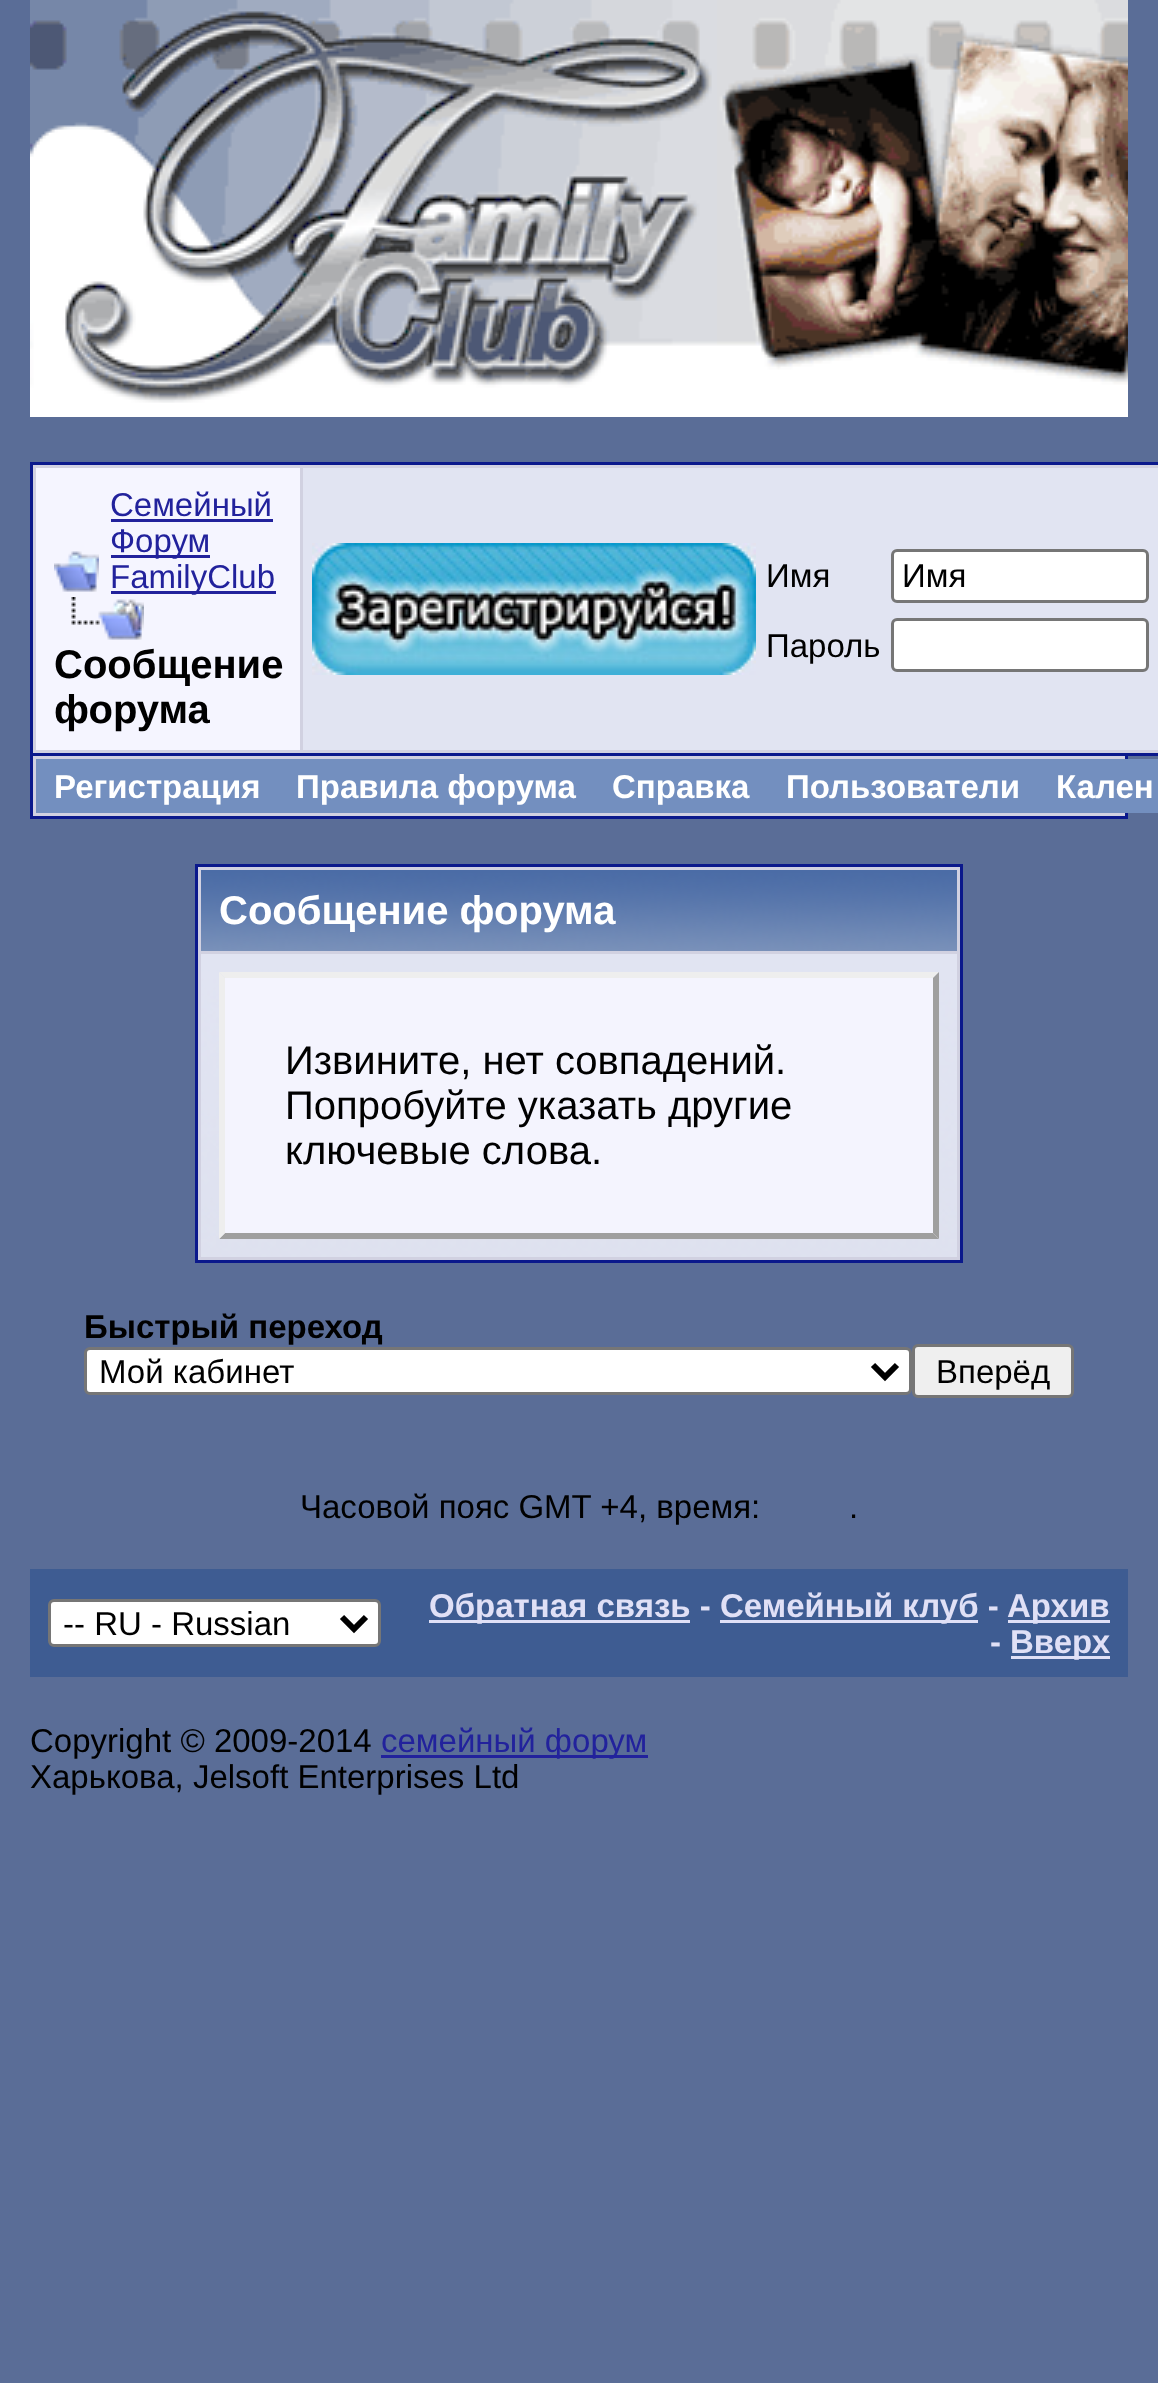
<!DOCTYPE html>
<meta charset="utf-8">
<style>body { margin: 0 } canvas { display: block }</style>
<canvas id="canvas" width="1158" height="2383"></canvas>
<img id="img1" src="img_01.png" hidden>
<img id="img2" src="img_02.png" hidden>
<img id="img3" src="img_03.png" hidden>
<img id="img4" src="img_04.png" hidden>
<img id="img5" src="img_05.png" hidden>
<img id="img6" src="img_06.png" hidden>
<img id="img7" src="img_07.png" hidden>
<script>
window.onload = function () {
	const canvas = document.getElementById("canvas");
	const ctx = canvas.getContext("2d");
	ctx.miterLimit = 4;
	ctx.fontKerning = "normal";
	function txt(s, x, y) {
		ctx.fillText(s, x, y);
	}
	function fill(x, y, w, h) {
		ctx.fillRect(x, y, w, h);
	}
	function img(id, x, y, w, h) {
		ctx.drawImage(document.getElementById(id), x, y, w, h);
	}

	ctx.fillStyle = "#5A6D97";
	fill(0, 0, 1158, 2383);
	ctx.fillStyle = "#FFFFFF";
	fill(30, 385, 1098, 32);
	img("img1", 30, 0, 687, 403);
	img("img2", 717, 0, 411, 385);
	ctx.fillStyle = "#D1D1E1";
	ctx.beginPath();
	ctx.rect(31.5, 463.5, 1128, 291);
	ctx.fill();
	ctx.strokeStyle = "#0B198C";
	ctx.lineWidth = 3;
	ctx.stroke();
	ctx.fillStyle = "#F5F5FF";
	fill(36, 468, 264, 282);
	img("img3", 54, 551, 45, 41);
	ctx.fillStyle = "#22229C";
	fill(111, 519, 162, 3);
	fill(111, 555, 99, 3);
	fill(111, 591, 165, 3);
	img("img4", 71, 597, 73, 43);
	ctx.fillStyle = "#E1E4F2";
	fill(303, 468, 855, 282);
	img("img5", 312, 543, 444, 132);
	ctx.fillStyle = "#FFFFFF";
	ctx.beginPath();
	ctx.roundRect(892.5, 550.5, 255, 51, 4.5);
	ctx.fill();
	ctx.strokeStyle = "#767676";
	ctx.stroke();
	ctx.beginPath();
	ctx.roundRect(892.5, 619.5, 255, 51, 4.5);
	ctx.fill();
	ctx.stroke();
	ctx.fillStyle = "#D1D1E1";
	fill(33, 756, 1092, 60);
	ctx.fillStyle = "#0B198C";
	fill(1125, 756, 3, 63);
	fill(30, 816, 1098, 3);
	fill(30, 756, 3, 63);
	ctx.fillStyle = "#738FBF";
	fill(36, 759, 1122, 54);
	ctx.fillStyle = "#D1D1E1";
	ctx.beginPath();
	ctx.rect(196.5, 865.5, 765, 396);
	ctx.fill();
	ctx.strokeStyle = "#0B198C";
	ctx.stroke();
	img("img6", 201, 870, 756, 81);
	img("img7", 201, 954, 756, 303);
	ctx.fillStyle = "#F4F4FE";
	fill(219, 978, 720, 261);
	ctx.fillStyle = "#EEEEEE";
	ctx.beginPath();
	ctx.moveTo(219, 972);
	ctx.lineTo(939, 972);
	ctx.lineTo(933, 978);
	ctx.lineTo(225, 978);
	ctx.closePath();
	ctx.fill();
	ctx.fillStyle = "#9F9F9F";
	ctx.beginPath();
	ctx.moveTo(939, 972);
	ctx.lineTo(939, 1239);
	ctx.lineTo(933, 1233);
	ctx.lineTo(933, 978);
	ctx.closePath();
	ctx.fill();
	ctx.beginPath();
	ctx.moveTo(939, 1239);
	ctx.lineTo(219, 1239);
	ctx.lineTo(225, 1233);
	ctx.lineTo(933, 1233);
	ctx.closePath();
	ctx.fill();
	ctx.fillStyle = "#EEEEEE";
	ctx.beginPath();
	ctx.moveTo(219, 1239);
	ctx.lineTo(219, 972);
	ctx.lineTo(225, 978);
	ctx.lineTo(225, 1233);
	ctx.closePath();
	ctx.fill();
	ctx.fillStyle = "#FFFFFF";
	ctx.beginPath();
	ctx.roundRect(85.5, 1348.5, 825, 45, 4.5);
	ctx.fill();
	ctx.strokeStyle = "#767676";
	ctx.stroke();
	ctx.beginPath();
	ctx.moveTo(873, 1365);
	ctx.lineTo(885, 1377);
	ctx.lineTo(897, 1365);
	ctx.strokeStyle = "#000000";
	ctx.lineWidth = 6;
	ctx.stroke();
	ctx.fillStyle = "#EFEFEF";
	ctx.beginPath();
	ctx.roundRect(913.5, 1345.5, 159, 51, 4.5);
	ctx.fill();
	ctx.strokeStyle = "#767676";
	ctx.lineWidth = 3;
	ctx.stroke();
	ctx.fillStyle = "#3E5C92";
	fill(30, 1569, 1098, 108);
	ctx.fillStyle = "#FFFFFF";
	ctx.beginPath();
	ctx.roundRect(49.5, 1600.5, 330, 45, 4.5);
	ctx.fill();
	ctx.stroke();
	ctx.beginPath();
	ctx.moveTo(342, 1617);
	ctx.lineTo(354, 1629);
	ctx.lineTo(366, 1617);
	ctx.strokeStyle = "#000000";
	ctx.lineWidth = 6;
	ctx.stroke();
	ctx.fillStyle = "#E0E0F6";
	fill(429, 1620, 261, 3);
	fill(720, 1620, 258, 3);
	fill(1008, 1620, 102, 3);
	fill(1011, 1656, 99, 3);
	ctx.fillStyle = "#22229C";
	fill(381, 1755, 267, 3);
	ctx.font = "33px Liberation Sans";
	txt("Семейный", 110, 516);
	txt("Форум", 110, 552);
	txt("FamilyClub", 110, 588);
	ctx.font = "bold 40px Liberation Sans";
	ctx.fillStyle = "#000000";
	txt("Сообщение", 54, 678);
	txt("форума", 54, 723);
	ctx.font = "33px Liberation Sans";
	txt("Имя", 766, 587);
	txt("Имя", 902, 587);
	txt("Пароль", 766, 657);
	ctx.font = "bold 33px Liberation Sans";
	ctx.fillStyle = "#FFFFFF";
	txt("Регистрация", 54, 798);
	txt("Правила форума", 296, 798);
	txt("Справка", 612, 798);
	txt("Пользователи", 786, 798);
	txt("Кален", 1056, 798);
	ctx.font = "bold 40px Liberation Sans";
	txt("Сообщение форума", 219, 924);
	ctx.font = "40px Liberation Sans";
	ctx.fillStyle = "#000000";
	txt("Извините, нет совпадений.", 285, 1074);
	txt("Попробуйте указать другие", 285, 1119);
	txt("ключевые слова.", 285, 1164);
	ctx.font = "bold 33px Liberation Sans";
	txt("Быстрый переход", 84, 1338);
	ctx.font = "33px Liberation Sans";
	txt("Мой кабинет", 99, 1383);
	txt("Вперёд", 936, 1383);
	txt("Часовой пояс GMT +4, время:", 300, 1518);
	txt(".", 849, 1518);
	txt("-- RU - Russian", 63, 1635);
	ctx.font = "bold 33px Liberation Sans";
	ctx.fillStyle = "#E0E0F6";
	txt("Обратная связь -", 429, 1617);
	txt("Семейный клуб -", 720, 1617);
	txt("Архив", 1007, 1617);
	txt("-", 990, 1653);
	txt("Вверх", 1010, 1653);
	ctx.font = "33px Liberation Sans";
	ctx.fillStyle = "#000000";
	txt("Copyright © 2009-2014", 30, 1752);
	ctx.fillStyle = "#22229C";
	txt("семейный форум", 381, 1752);
	ctx.fillStyle = "#000000";
	txt("Харькова, Jelsoft Enterprises Ltd", 30, 1788);
};
</script>
